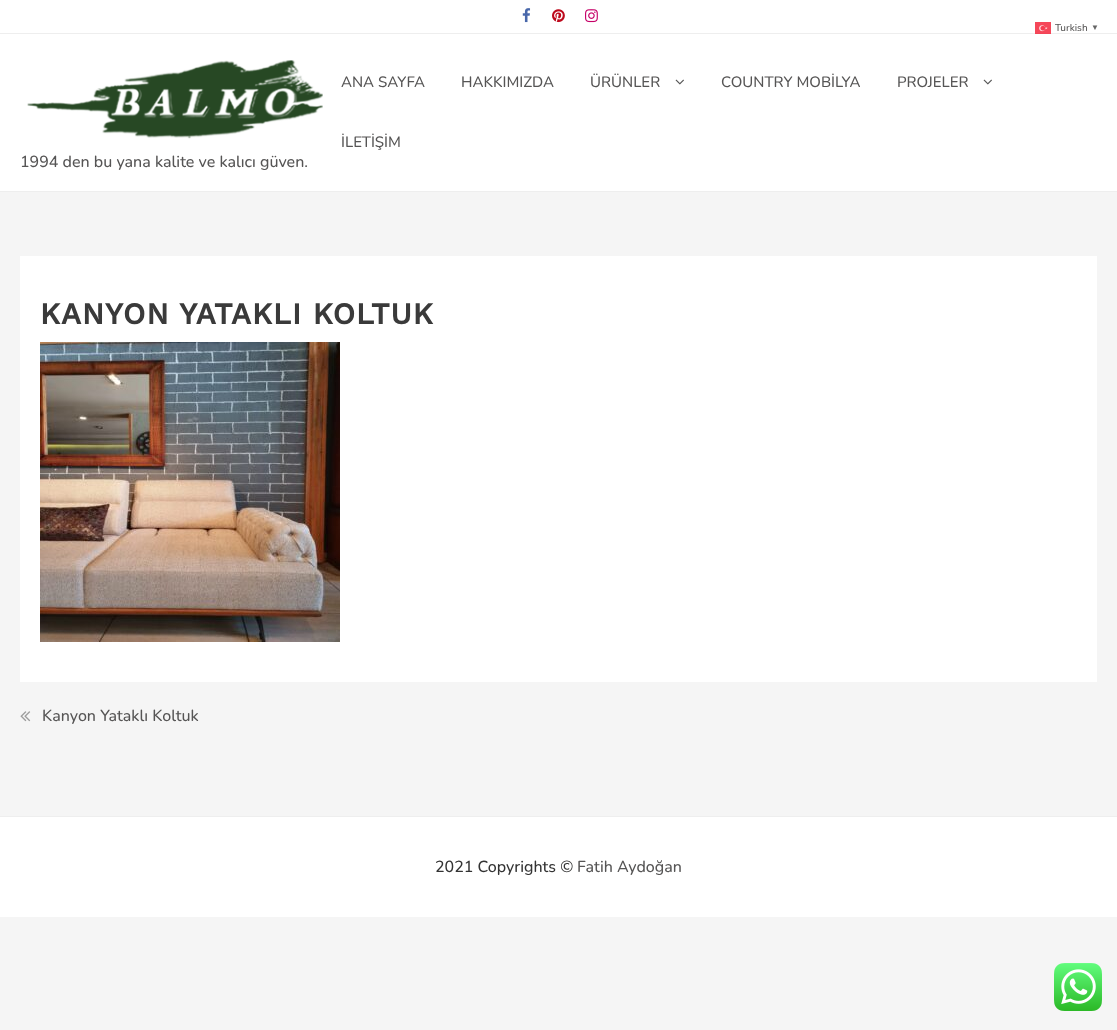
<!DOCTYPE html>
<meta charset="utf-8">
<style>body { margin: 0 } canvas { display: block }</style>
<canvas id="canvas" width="1117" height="1030"></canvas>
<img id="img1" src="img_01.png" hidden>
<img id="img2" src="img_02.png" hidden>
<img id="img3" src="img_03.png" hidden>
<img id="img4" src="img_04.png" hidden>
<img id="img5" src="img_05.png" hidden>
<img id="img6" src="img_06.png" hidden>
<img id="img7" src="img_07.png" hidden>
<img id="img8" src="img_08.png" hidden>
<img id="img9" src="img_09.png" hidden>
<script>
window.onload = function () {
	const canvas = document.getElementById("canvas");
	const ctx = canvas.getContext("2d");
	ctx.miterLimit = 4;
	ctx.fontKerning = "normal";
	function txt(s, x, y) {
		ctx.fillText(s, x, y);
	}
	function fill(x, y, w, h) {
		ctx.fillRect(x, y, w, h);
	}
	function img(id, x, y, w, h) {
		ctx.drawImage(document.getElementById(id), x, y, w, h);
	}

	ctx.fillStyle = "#F5F5F5";
	fill(0, 0, 1117, 1030);
	ctx.fillStyle = "#FFFFFF";
	fill(0, 0, 1117, 33);
	ctx.fillStyle = "#EEEEEE";
	fill(0, 33, 1117, 1);
	img("img1", 1035, 22, 16, 12);
	img("img2", 522, 8, 9, 15);
	img("img3", 552, 9, 13, 14);
	img("img4", 585, 9, 13, 14);
	ctx.fillStyle = "#FFFFFF";
	fill(0, 34, 1117, 157);
	ctx.fillStyle = "#EEEEEE";
	fill(0, 191, 1117, 1);
	img("img5", 675, 79, 9, 6);
	img("img5", 983, 79, 9, 6);
	img("img6", 27, 60, 296, 79);
	ctx.fillStyle = "#FFFFFF";
	fill(20, 256, 1077, 426);
	img("img7", 40, 342, 300, 300);
	img("img8", 20, 711, 11, 11);
	fill(0, 817, 1117, 100);
	ctx.fillStyle = "#EEEEEE";
	fill(0, 816, 1117, 1);
	img("img9", 1054, 963, 48, 48);
	ctx.font = "500 10px Nunito";
	ctx.fillStyle = "#565555";
	txt("Turkish", 1055, 31);
	ctx.font = "bold 8px Liberation Sans";
	ctx.fillStyle = "#666666";
	txt("▼", 1091, 30);
	ctx.font = "500 15px Nunito";
	ctx.fillStyle = "#565555";
	txt("ANA SAYFA", 341, 87);
	txt("HAKKIMIZDA", 461, 87);
	txt("ÜRÜNLER", 590, 87);
	txt("COUNTRY MOBİLYA", 721, 87);
	txt("PROJELER", 897, 87);
	txt("İLETİŞİM", 341, 147);
	ctx.font = "500 16px Nunito";
	txt("1994 den bu yana kalite ve kalıcı güven.", 20, 167);
	ctx.letterSpacing = "1px";
	ctx.font = "bold 30px Work Sans";
	ctx.fillStyle = "#3A3A3A";
	txt("KANYON YATAKLI KOLTUK", 40, 324);
	ctx.letterSpacing = "0px";
	ctx.font = "500 16px Nunito";
	ctx.fillStyle = "#565555";
	txt("Kanyon Yataklı Koltuk", 42, 721);
	ctx.fillStyle = "#333333";
	txt("2021 Copyrights ©", 435, 872);
	ctx.fillStyle = "#565555";
	txt("Fatih Aydoğan", 577, 872);
};
</script>
